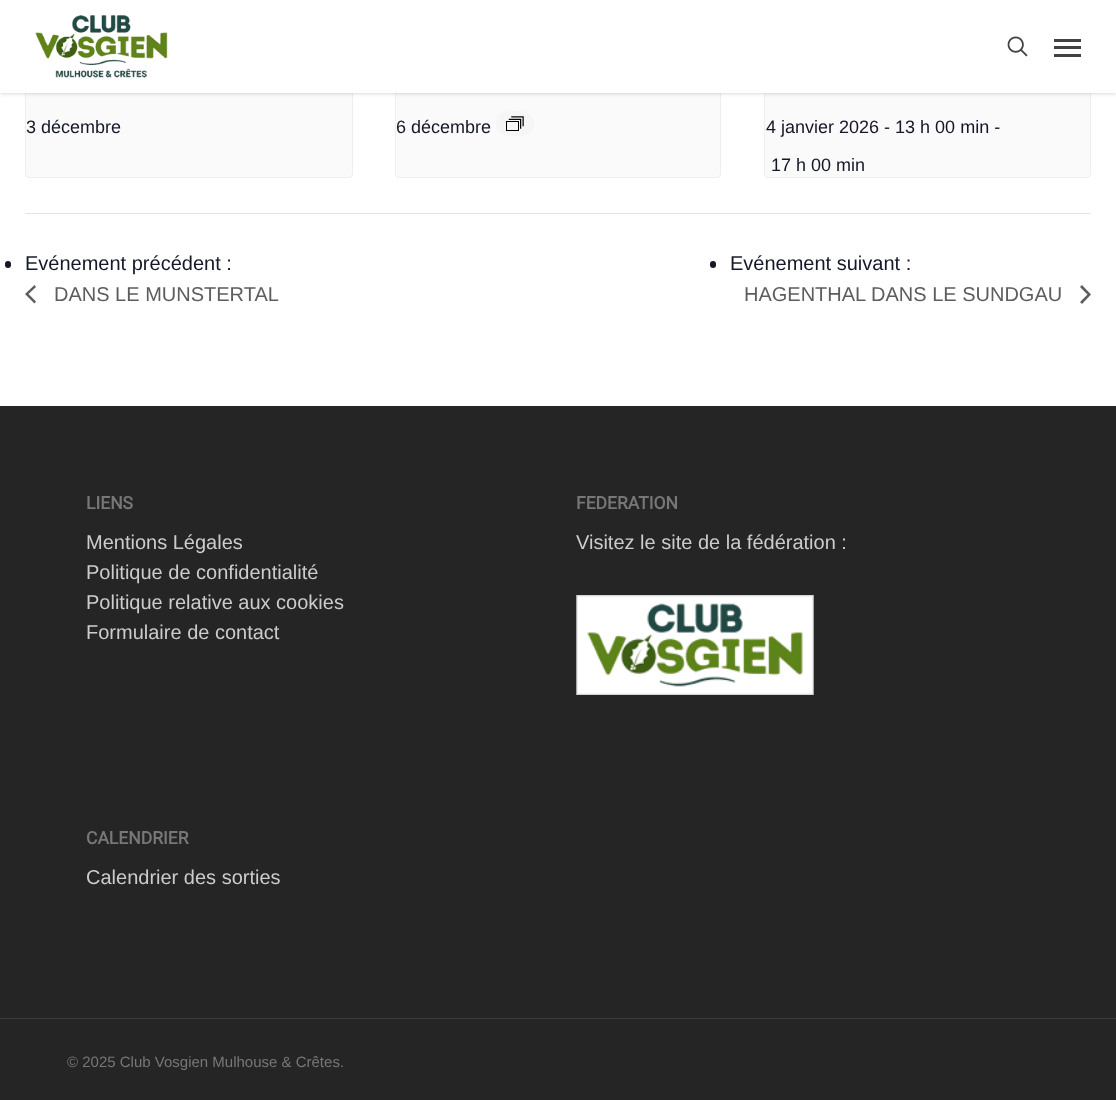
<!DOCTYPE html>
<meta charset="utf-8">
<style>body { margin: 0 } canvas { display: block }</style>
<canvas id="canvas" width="1116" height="1100"></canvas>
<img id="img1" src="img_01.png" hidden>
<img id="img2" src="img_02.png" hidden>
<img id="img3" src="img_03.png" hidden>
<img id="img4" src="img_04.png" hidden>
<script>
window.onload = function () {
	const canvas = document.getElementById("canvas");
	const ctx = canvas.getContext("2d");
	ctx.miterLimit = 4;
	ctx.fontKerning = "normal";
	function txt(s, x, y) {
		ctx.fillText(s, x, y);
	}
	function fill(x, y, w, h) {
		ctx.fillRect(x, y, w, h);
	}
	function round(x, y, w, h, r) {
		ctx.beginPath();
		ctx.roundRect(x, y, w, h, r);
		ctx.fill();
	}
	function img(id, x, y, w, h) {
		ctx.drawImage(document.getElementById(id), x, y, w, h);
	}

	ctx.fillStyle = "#FFFFFF";
	fill(0, 0, 1116, 1100);
	ctx.fillStyle = "#FAFAFA";
	ctx.beginPath();
	ctx.roundRect(25.5, -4.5, 327, 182, 3.5);
	ctx.fill();
	ctx.strokeStyle = "#EEEEEE";
	ctx.stroke();
	ctx.beginPath();
	ctx.roundRect(395.5, -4.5, 325, 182, 3.5);
	ctx.fill();
	ctx.stroke();
	ctx.beginPath();
	ctx.roundRect(764.5, -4.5, 326, 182, 3.5);
	ctx.fill();
	ctx.stroke();
	ctx.fillStyle = "rgba(0, 0, 0, 0.22)";
	ctx.filter = "blur(2px)";
	ctx.beginPath();
	ctx.rect(0, -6, 1116, 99);
	ctx.fill();
	ctx.filter = "none";
	ctx.fillStyle = "#FFFFFF";
	fill(0, 0, 1116, 93);
	img("img1", 35, 15, 133, 63);
	img("img2", 1007, 36, 21, 21);
	ctx.fillStyle = "#424242";
	fill(1054, 39, 27, 3);
	fill(1054, 54, 27, 3);
	fill(1054, 46, 27, 3);
	ctx.fillStyle = "#F7F6F6";
	round(496, 111, 38, 25, 12.5);
	img("img3", 506, 116, 18, 15);
	ctx.fillStyle = "#E4E4E4";
	fill(25, 213, 1066, 1);
	ctx.fillStyle = "#141827";
	round(5, 261, 6, 7, 3);
	ctx.fillStyle = "#5D5D5D";
	ctx.beginPath();
	ctx.moveTo(36, 301.5);
	ctx.lineTo(34.5, 303.5);
	ctx.lineTo(25, 294);
	ctx.lineTo(34.5, 285);
	ctx.lineTo(36, 287);
	ctx.lineTo(28.5, 294);
	ctx.closePath();
	ctx.fill();
	ctx.fillStyle = "#141827";
	round(710, 261, 6, 7, 3);
	ctx.fillStyle = "#5D5D5D";
	ctx.beginPath();
	ctx.moveTo(1080, 287);
	ctx.lineTo(1082, 285);
	ctx.lineTo(1091, 294.5);
	ctx.lineTo(1082, 304);
	ctx.lineTo(1080, 302);
	ctx.lineTo(1087.5, 294.5);
	ctx.closePath();
	ctx.fill();
	ctx.fillStyle = "#252525";
	fill(0, 406, 1116, 694);
	img("img4", 576, 595, 238, 100);
	ctx.fillStyle = "#3B3B3B";
	fill(0, 1018, 1116, 1);
	ctx.font = "18px Liberation Sans";
	ctx.fillStyle = "#141827";
	txt("3 décembre", 26, 133);
	txt("6 décembre", 396, 133);
	txt("4 janvier 2026 - 13 h 00 min -", 766, 133);
	txt("17 h 00 min", 771, 171);
	ctx.font = "20px Liberation Sans";
	txt("Evénement précédent :", 25, 270);
	ctx.fillStyle = "#5D5D5D";
	txt("DANS LE MUNSTERTAL", 54, 301);
	ctx.fillStyle = "#141827";
	txt("Evénement suivant :", 730, 270);
	ctx.fillStyle = "#5D5D5D";
	txt("HAGENTHAL DANS LE SUNDGAU", 744, 301);
	ctx.font = "bold 17.5px Heebo";
	ctx.fillStyle = "#777777";
	txt("LIENS", 86, 509);
	ctx.font = "20px Arimo";
	ctx.fillStyle = "#CCCCCC";
	txt("Mentions Légales", 86, 549);
	txt("Politique de confidentialité", 86, 579);
	txt("Politique relative aux cookies", 86, 609);
	txt("Formulaire de contact", 86, 639);
	ctx.font = "bold 17.5px Heebo";
	ctx.fillStyle = "#777777";
	txt("FEDERATION", 576, 509);
	ctx.font = "20px Arimo";
	ctx.fillStyle = "#CCCCCC";
	txt("Visitez le site de la fédération :", 576, 549);
	ctx.font = "bold 17.5px Heebo";
	ctx.fillStyle = "#777777";
	txt("CALENDRIER", 86, 844);
	ctx.font = "20px Arimo";
	ctx.fillStyle = "#CCCCCC";
	txt("Calendrier des sorties", 86, 884);
	ctx.font = "15px Arimo";
	ctx.fillStyle = "#777777";
	txt("© 2025 Club Vosgien Mulhouse & Crêtes.", 67, 1067);
};
</script>
